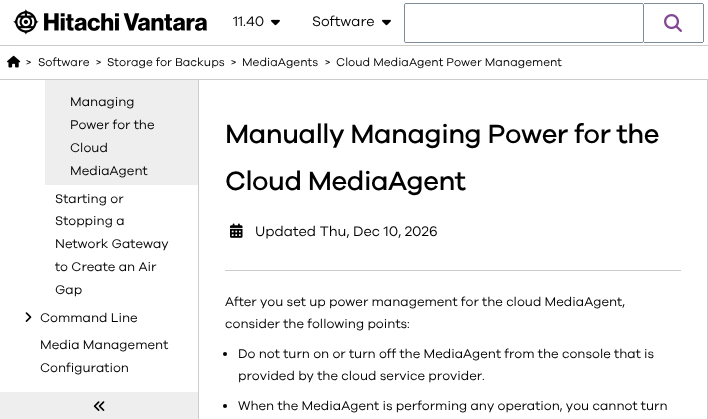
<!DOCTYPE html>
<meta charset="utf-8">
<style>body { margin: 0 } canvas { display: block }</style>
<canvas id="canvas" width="708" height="419"></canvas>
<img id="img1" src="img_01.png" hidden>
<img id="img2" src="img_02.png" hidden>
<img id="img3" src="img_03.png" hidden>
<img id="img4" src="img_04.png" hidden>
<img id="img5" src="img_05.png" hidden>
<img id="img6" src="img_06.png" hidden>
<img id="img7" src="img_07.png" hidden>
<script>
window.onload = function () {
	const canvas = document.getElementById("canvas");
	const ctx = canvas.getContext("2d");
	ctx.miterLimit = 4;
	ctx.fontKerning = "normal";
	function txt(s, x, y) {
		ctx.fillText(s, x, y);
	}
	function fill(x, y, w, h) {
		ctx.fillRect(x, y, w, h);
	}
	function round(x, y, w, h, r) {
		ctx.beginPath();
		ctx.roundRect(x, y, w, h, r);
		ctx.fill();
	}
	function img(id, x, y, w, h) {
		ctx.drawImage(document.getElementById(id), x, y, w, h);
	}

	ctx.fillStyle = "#FFFFFF";
	fill(0, 0, 708, 419);
	ctx.fillStyle = "#CCCCCC";
	fill(0, 45, 708, 1);
	img("img1", 13, 9, 194, 26);
	img("img2", 271, 19, 9, 7);
	img("img2", 382, 19, 9, 7);
	ctx.beginPath();
	ctx.roundRect(404.5, 3.5, 239, 39, 1.5);
	ctx.strokeStyle = "#7E8C9A";
	ctx.stroke();
	ctx.fillStyle = "#FFFFFF";
	round(405, 4, 238, 38, 2);
	ctx.fillStyle = "#7E8C9A";
	fill(644, 3, 59, 1);
	fill(703, 4, 1, 38);
	fill(644, 42, 59, 1);
	img("img3", 664, 14, 18, 18);
	ctx.fillStyle = "#CCCCCC";
	fill(707, 80, 1, 339);
	fill(0, 79, 708, 1);
	img("img4", 7, 55, 14, 13);
	img("img5", 230, 223, 13, 15);
	fill(225, 270, 456, 1);
	ctx.fillStyle = "#000000";
	ctx.beginPath();
	ctx.arc(225, 354, 2, 0, Math.PI * 2);
	ctx.fill();
	ctx.beginPath();
	ctx.arc(225, 406, 2, 0, Math.PI * 2);
	ctx.fill();
	ctx.fillStyle = "#EEEEEE";
	fill(45, 80, 153, 105);
	img("img6", 25, 312, 7, 10);
	fill(0, 392, 198, 27);
	img("img7", 93, 401, 12, 10);
	ctx.fillStyle = "#CCCCCC";
	fill(198, 80, 1, 339);
	ctx.font = "14.25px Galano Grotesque";
	ctx.fillStyle = "#000000";
	txt("11.40", 233, 26);
	txt("Software", 312, 26);
	ctx.font = "11.75px Galano Grotesque";
	txt(">", 26, 66);
	txt("Software", 38, 66);
	txt(">", 96, 66);
	txt("Storage for Backups", 107, 66);
	txt(">", 231, 66);
	txt("MediaAgents", 242, 66);
	txt(">", 325, 66);
	txt("Cloud MediaAgent Power Management", 336, 66);
	ctx.letterSpacing = "-0.5px";
	ctx.font = "500 27.25px Galano Grotesque";
	txt("Manually Managing Power for the", 225, 143);
	txt("Cloud MediaAgent", 225, 190);
	ctx.letterSpacing = "0px";
	ctx.font = "14.25px Galano Grotesque";
	txt("Updated Thu, Dec 10, 2026", 255, 236);
	ctx.font = "13px Galano Grotesque";
	txt("After you set up power management for the cloud MediaAgent,", 225, 306);
	txt("consider the following points:", 225, 328);
	txt("Do not turn on or turn off the MediaAgent from the console that is", 238, 358);
	txt("provided by the cloud service provider.", 238, 380);
	txt("When the MediaAgent is performing any operation, you cannot turn", 238, 410);
	txt("Managing", 70, 106);
	txt("Power for the", 70, 129);
	txt("Cloud", 70, 152);
	txt("MediaAgent", 70, 175);
	txt("Starting or", 55, 203);
	txt("Stopping a", 55, 225);
	txt("Network Gateway", 55, 248);
	txt("to Create an Air", 55, 271);
	txt("Gap", 55, 294);
	txt("Command Line", 40, 322);
	txt("Media Management", 40, 349);
	txt("Configuration", 40, 372);
};
</script>
